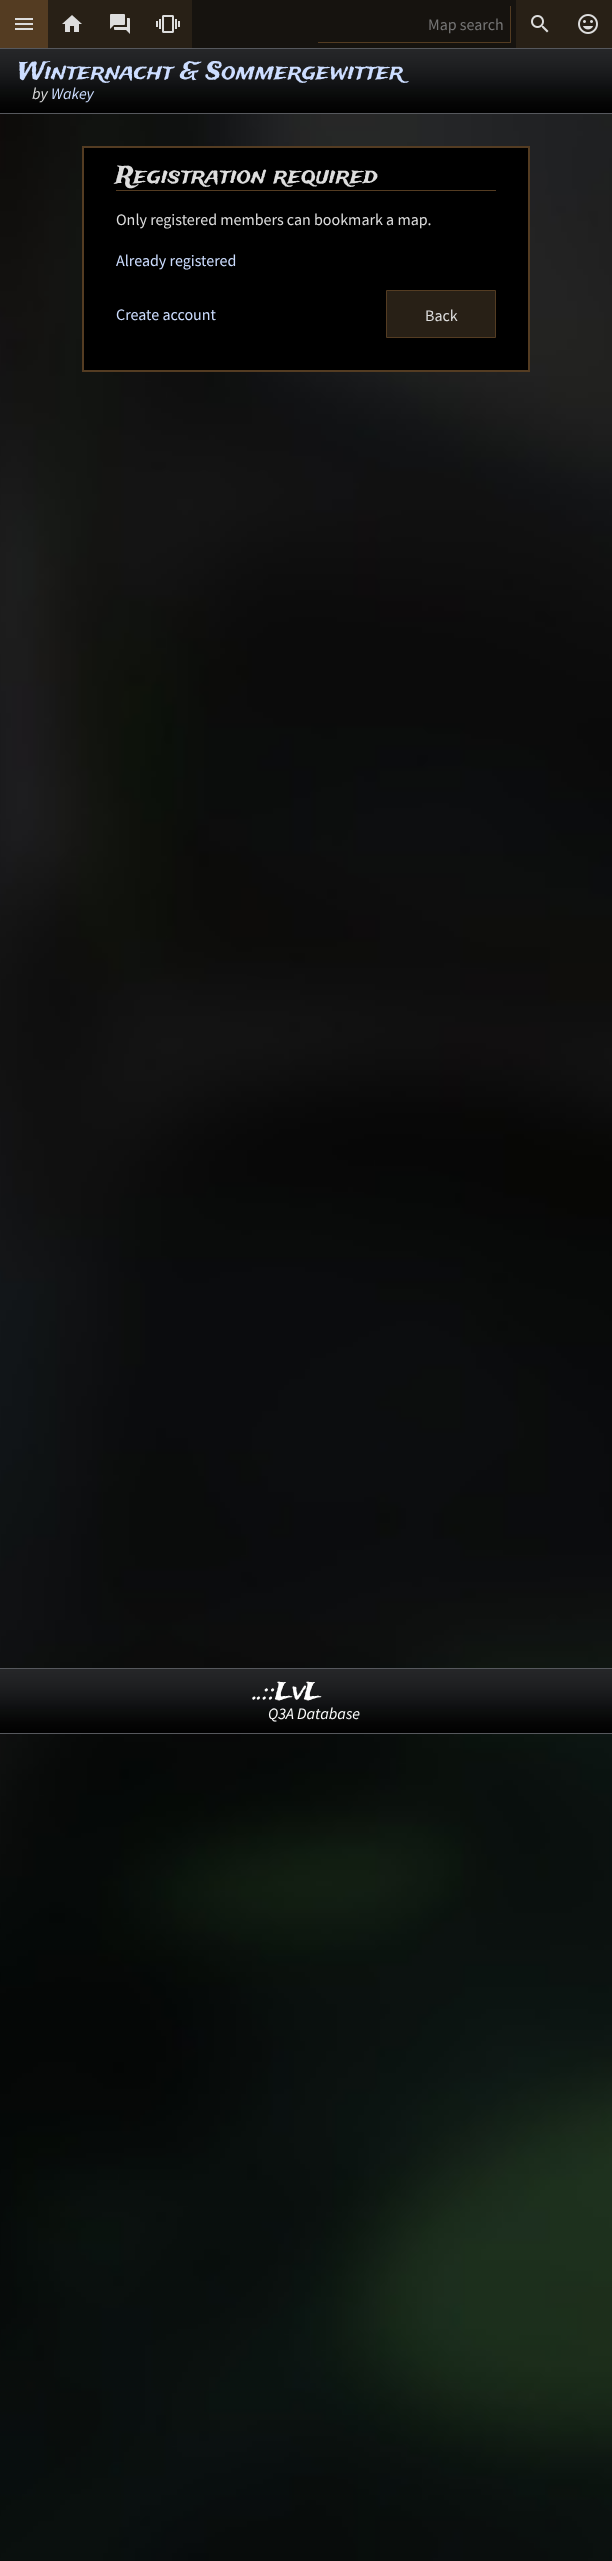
<!DOCTYPE html>
<meta charset="utf-8">
<style>body { margin: 0 } canvas { display: block }</style>
<canvas id="canvas" width="612" height="2561"></canvas>
<img id="img1" src="img_01.png" hidden>
<img id="img2" src="img_02.png" hidden>
<img id="img3" src="img_03.png" hidden>
<img id="img4" src="img_04.png" hidden>
<img id="img5" src="img_05.png" hidden>
<img id="img6" src="img_06.png" hidden>
<img id="img7" src="img_07.png" hidden>
<img id="img8" src="img_08.png" hidden>
<script>
window.onload = function () {
	const canvas = document.getElementById("canvas");
	const ctx = canvas.getContext("2d");
	ctx.miterLimit = 4;
	ctx.fontKerning = "normal";
	function txt(s, x, y) {
		ctx.fillText(s, x, y);
	}
	function fill(x, y, w, h) {
		ctx.fillRect(x, y, w, h);
	}
	function img(id, x, y, w, h) {
		ctx.drawImage(document.getElementById(id), x, y, w, h);
	}

	ctx.fillStyle = "#FFFFFF";
	fill(0, 0, 612, 2561);
	ctx.fillStyle = "#16130F";
	fill(192, 0, 324, 48);
	ctx.fillStyle = "#543C22";
	fill(0, 0, 48, 48);
	img("img1", 15, 18, 18, 12);
	ctx.fillStyle = "#282016";
	fill(48, 0, 144, 48);
	img("img2", 62, 15, 20, 17);
	fill(516, 0, 96, 48);
	img("img3", 531, 15, 18, 18);
	img("img4", 578, 14, 20, 20);
	img("img5", 110, 14, 20, 20);
	img("img6", 156, 15, 24, 18);
	ctx.fillStyle = "#543C22";
	fill(510, 6, 1, 37);
	fill(318, 42, 193, 1);
	img("img7", 0, 49, 612, 64);
	ctx.fillStyle = "#56585D";
	fill(0, 48, 612, 1);
	fill(0, 113, 612, 1);
	img("img8", 0, 114, 612, 2447);
	ctx.fillStyle = "#000000";
	ctx.beginPath();
	ctx.rect(83, 147, 446, 224);
	ctx.fill();
	ctx.strokeStyle = "#543C22";
	ctx.lineWidth = 2;
	ctx.stroke();
	ctx.fillStyle = "#543C22";
	fill(116, 190, 380, 1);
	ctx.fillStyle = "#282016";
	ctx.beginPath();
	ctx.rect(386.5, 290.5, 109, 47);
	ctx.fill();
	ctx.lineWidth = 1;
	ctx.stroke();
	img("img7", 0, 1669, 612, 64);
	ctx.fillStyle = "#56585D";
	fill(0, 1668, 612, 1);
	fill(0, 1733, 612, 1);
	ctx.font = "16px Source Sans Pro";
	ctx.fillStyle = "#757575";
	txt("Map search", 428, 30);
	ctx.font = "24px Trade Winds";
	ctx.fillStyle = "#CCDDFF";
	txt("Winternacht & Sommergewitter", 18, 79);
	ctx.font = "italic 16px Source Sans Pro";
	ctx.fillStyle = "#DDDDDD";
	txt("by", 32, 99);
	ctx.fillStyle = "#CCDDFF";
	txt("Wakey", 51, 99);
	ctx.font = "24px Trade Winds";
	ctx.fillStyle = "#DDDDDD";
	txt("Registration required", 116, 183);
	ctx.font = "16px Source Sans Pro";
	txt("Only registered members can bookmark a map.", 116, 225);
	ctx.fillStyle = "#CCDDFF";
	txt("Already registered", 116, 266);
	txt("Create account", 116, 320);
	ctx.fillStyle = "#DDDDDD";
	txt("Back", 425, 321);
	ctx.font = "24px Trade Winds";
	ctx.fillStyle = "#FFFFFF";
	txt("..::LvL", 254, 1699);
	ctx.font = "italic 16px Source Sans Pro";
	txt("Q3A Database", 268, 1719);
};
</script>
